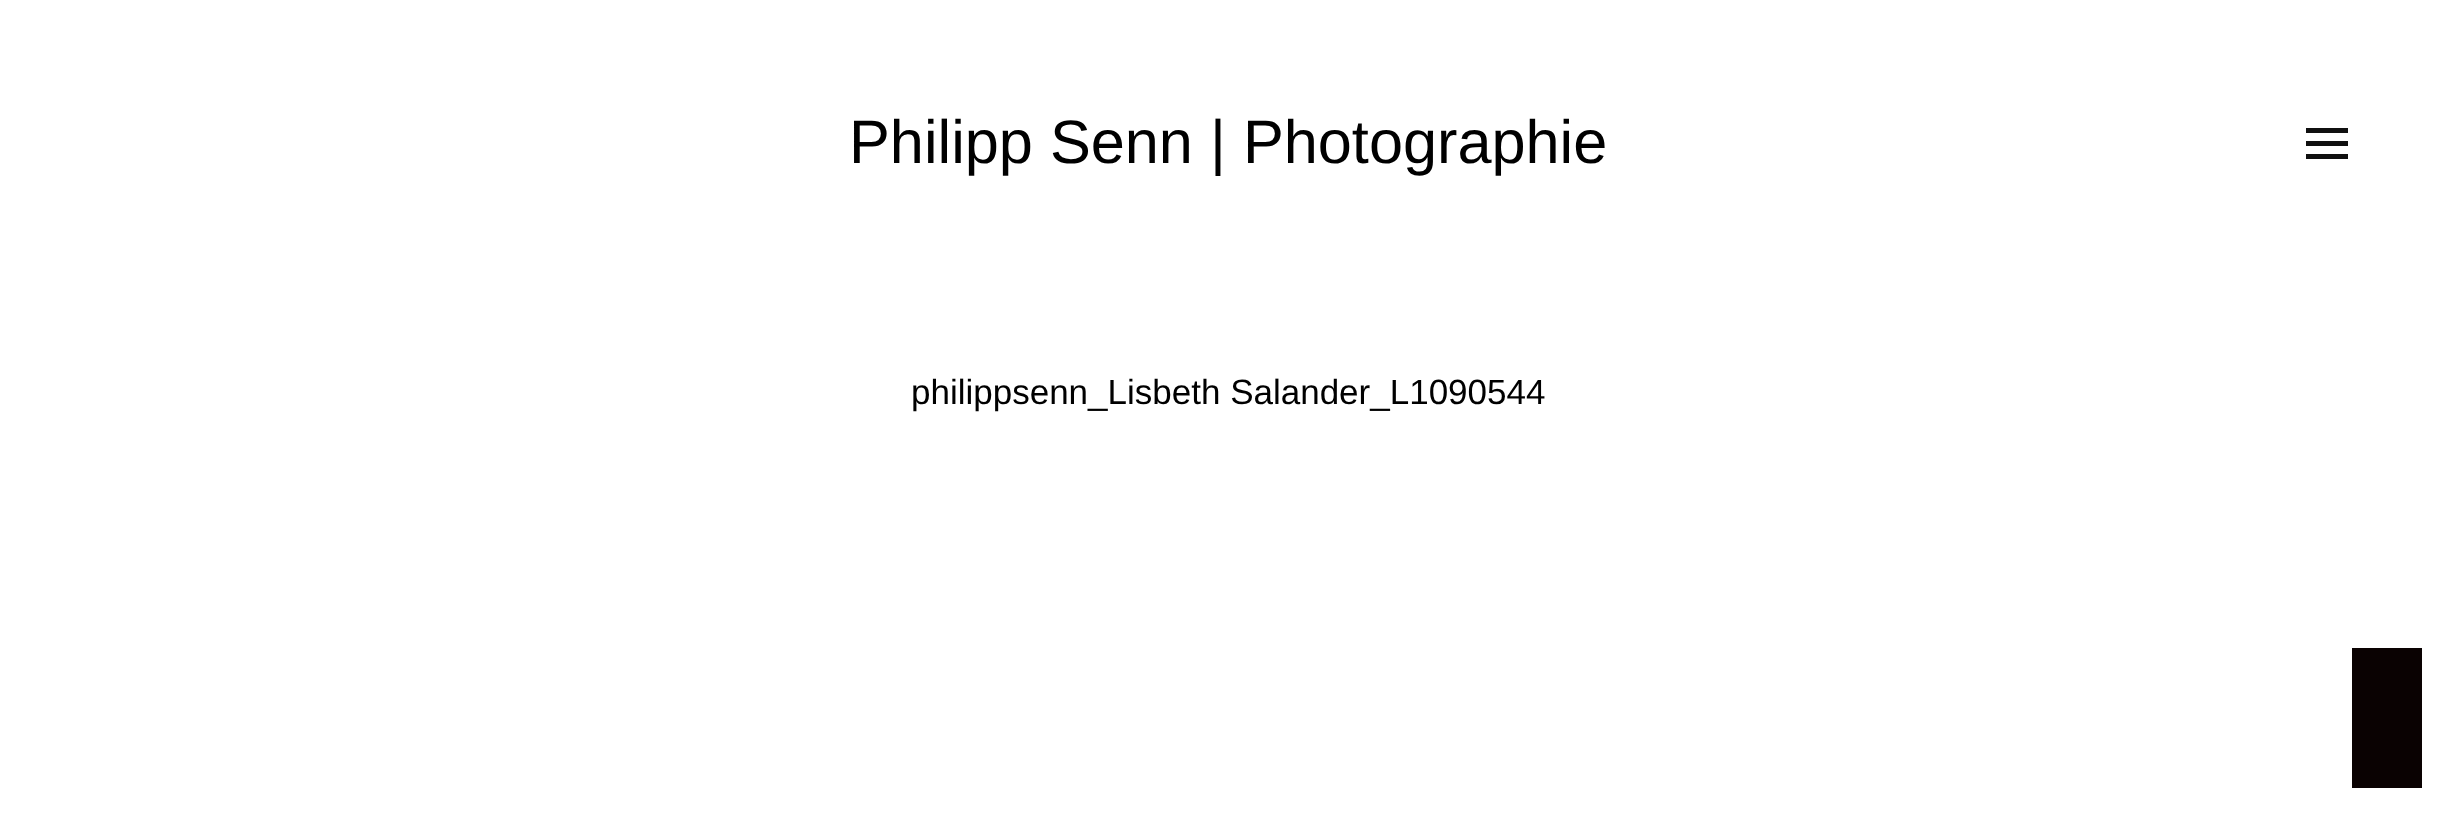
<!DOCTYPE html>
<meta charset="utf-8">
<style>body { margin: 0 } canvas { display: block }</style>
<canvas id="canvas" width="2456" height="822"></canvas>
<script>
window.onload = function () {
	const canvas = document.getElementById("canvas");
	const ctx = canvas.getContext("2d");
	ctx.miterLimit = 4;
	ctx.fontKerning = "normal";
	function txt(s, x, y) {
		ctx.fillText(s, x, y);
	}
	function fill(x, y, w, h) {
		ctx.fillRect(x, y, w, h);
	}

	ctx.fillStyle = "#FFFFFF";
	fill(0, 0, 2456, 822);
	ctx.fillStyle = "#101010";
	ctx.beginPath();
	ctx.moveTo(2306, 159);
	ctx.lineTo(2306, 154);
	ctx.lineTo(2348, 154);
	ctx.lineTo(2348, 159);
	ctx.closePath();
	ctx.moveTo(2306, 146);
	ctx.lineTo(2306, 141);
	ctx.lineTo(2348, 141);
	ctx.lineTo(2348, 146);
	ctx.closePath();
	ctx.moveTo(2306, 133);
	ctx.lineTo(2306, 128);
	ctx.lineTo(2348, 128);
	ctx.lineTo(2348, 133);
	ctx.closePath();
	ctx.fill();
	ctx.fillStyle = "#0A0202";
	fill(2352, 648, 70, 140);
	ctx.font = "61.25px Liberation Sans";
	ctx.fillStyle = "#000000";
	txt("Philipp Senn | Photographie", 849, 163);
	ctx.font = "35px Liberation Sans";
	txt("philippsenn_Lisbeth Salander_L1090544", 911, 404);
};
</script>
